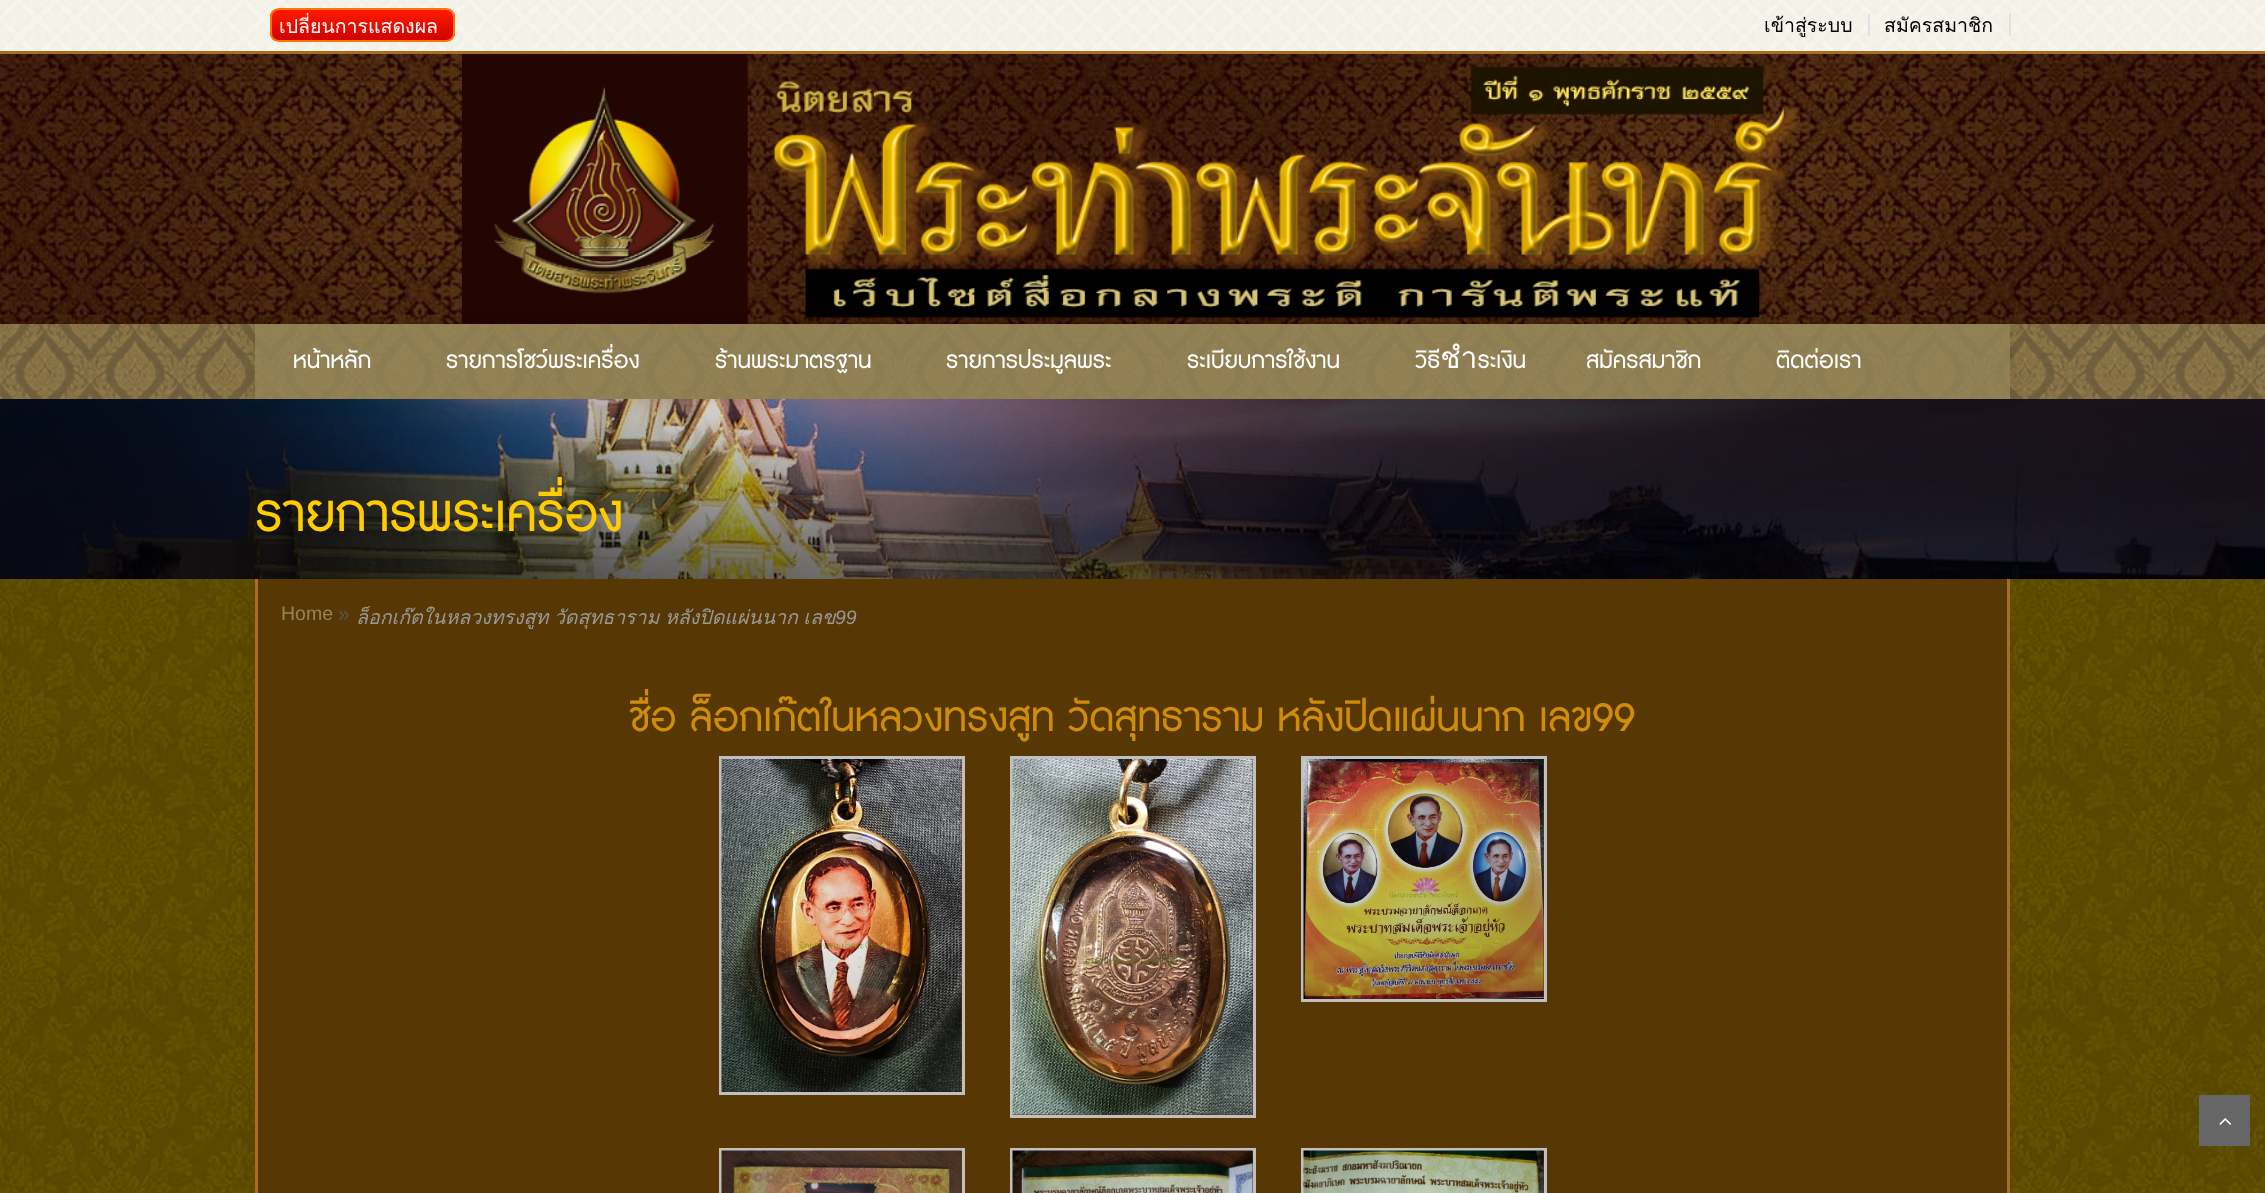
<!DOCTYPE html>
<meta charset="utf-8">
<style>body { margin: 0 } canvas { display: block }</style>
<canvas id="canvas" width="2265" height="1193"></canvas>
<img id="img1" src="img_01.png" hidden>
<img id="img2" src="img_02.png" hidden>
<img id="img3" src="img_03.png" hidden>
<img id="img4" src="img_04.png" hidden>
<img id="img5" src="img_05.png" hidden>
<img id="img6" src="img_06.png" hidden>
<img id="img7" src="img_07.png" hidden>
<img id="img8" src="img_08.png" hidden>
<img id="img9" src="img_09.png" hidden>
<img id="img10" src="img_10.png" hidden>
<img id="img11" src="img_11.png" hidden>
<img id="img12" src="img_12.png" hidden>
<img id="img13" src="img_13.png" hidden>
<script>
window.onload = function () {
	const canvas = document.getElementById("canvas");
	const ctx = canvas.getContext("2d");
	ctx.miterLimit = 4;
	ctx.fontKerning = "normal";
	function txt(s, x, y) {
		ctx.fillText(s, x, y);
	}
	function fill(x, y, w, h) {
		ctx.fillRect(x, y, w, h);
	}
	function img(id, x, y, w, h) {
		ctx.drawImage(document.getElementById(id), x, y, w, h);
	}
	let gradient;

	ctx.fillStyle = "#FFFFFF";
	fill(0, 0, 2265, 1193);
	img("img1", 0, 579, 2265, 614);
	img("img2", 0, 54, 2265, 345);
	ctx.fillStyle = "#F6F6F6";
	fill(0, 0, 2265, 51);
	img("img3", 0, 0, 2265, 51);
	ctx.fillStyle = "#AA6C20";
	fill(0, 51, 2265, 3);
	ctx.save();
	ctx.beginPath();
	ctx.roundRect(270, 8, 185, 34, 9);
	ctx.clip();
	gradient = ctx.createLinearGradient(272, 9, 272, 41);
	gradient.addColorStop(0.05, "#FE1A00");
	gradient.addColorStop(1, "#CE0100");
	ctx.fillStyle = gradient;
	fill(270, 9, 185, 32);
	ctx.restore();
	ctx.beginPath();
	ctx.roundRect(271, 9, 183, 32, 8);
	ctx.strokeStyle = "#FF7701";
	ctx.lineWidth = 2;
	ctx.stroke();
	ctx.fillStyle = "#E0E0E0";
	fill(1868, 14, 2, 22);
	fill(2009, 14, 2, 22);
	img("img4", 462, 54, 1339, 270);
	ctx.fillStyle = "rgba(149, 132, 87, 0.8)";
	fill(0, 324, 2265, 75);
	img("img5", 0, 324, 2265, 75);
	img("img6", 0, 399, 2265, 180);
	ctx.save();
	ctx.beginPath();
	ctx.moveTo(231, 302);
	ctx.lineTo(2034, 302);
	ctx.lineTo(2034, 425);
	ctx.lineTo(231, 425);
	ctx.closePath();
	ctx.moveTo(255, 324);
	ctx.lineTo(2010, 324);
	ctx.lineTo(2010, 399);
	ctx.lineTo(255, 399);
	ctx.closePath();
	ctx.clip("evenodd");
	ctx.fillStyle = "rgba(0, 0, 0, 0.1)";
	ctx.filter = "blur(7.5px)";
	ctx.beginPath();
	ctx.rect(255, 326, 1755, 75);
	ctx.fill();
	ctx.filter = "none";
	ctx.restore();
	fill(255, 324, 1755, 75);
	ctx.fillStyle = "#573804";
	fill(258, 579, 1749, 614);
	ctx.fillStyle = "#AA6C20";
	fill(2007, 579, 3, 614);
	fill(255, 579, 3, 614);
	ctx.strokeStyle = "#C0C0C0";
	ctx.lineWidth = 3;
	ctx.strokeRect(720.5, 757.5, 243, 336);
	img("img7", 721, 759, 241, 333);
	ctx.strokeRect(1011.5, 757.5, 243, 359);
	img("img8", 1012, 759, 241, 356);
	ctx.strokeRect(1302.5, 757.5, 243, 243);
	img("img9", 1303, 759, 241, 240);
	ctx.strokeRect(720.5, 1149.5, 243, 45);
	img("img10", 721, 1150, 241, 43);
	ctx.strokeRect(1011.5, 1149.5, 243, 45);
	img("img11", 1012, 1150, 241, 43);
	ctx.strokeRect(1302.5, 1149.5, 243, 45);
	img("img12", 1303, 1150, 241, 43);
	ctx.fillStyle = "#666666";
	fill(2199, 1095, 51, 51);
	img("img13", 2219, 1118, 12, 7);
	ctx.font = "19.5px Loma";
	ctx.fillStyle = "#FFFFFF";
	txt("เปลี่ยนการแสดงผล", 279, 33);
	ctx.fillStyle = "#000000";
	txt("เข้าสู่ระบบ", 1764, 32);
	txt("สมัครสมาชิก", 1884, 32);
	ctx.font = "30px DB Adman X";
	ctx.fillStyle = "#FFFFFF";
	txt("หน้าหลัก", 293, 368);
	txt("รายการโชว์พระเครื่อง", 446, 368);
	txt("ร้านพระมาตรฐาน", 715, 368);
	txt("รายการประมูลพระ", 946, 368);
	txt("ระเบียบการใช้งาน", 1187, 368);
	txt("วิธีชำระเงิน", 1415, 368);
	txt("สมัครสมาชิก", 1586, 368);
	txt("ติดต่อเรา", 1776, 368);
	ctx.font = "67.5px DB Adman X";
	ctx.fillStyle = "#FFCC00";
	txt("รายการพระเครื่อง", 255, 531);
	ctx.font = "19.5px Liberation Sans";
	ctx.fillStyle = "#958457";
	txt("Home", 281, 620);
	ctx.font = "21px Liberation Sans";
	ctx.fillStyle = "#555555";
	txt("»", 338, 621);
	ctx.wordSpacing = "-1px";
	ctx.font = "italic 19.5px Loma";
	ctx.fillStyle = "#999999";
	txt("ล็อกเก๊ตในหลวงทรงสูท วัดสุทธาราม หลังปิดแผ่นนาก เลข", 356, 624);
	ctx.wordSpacing = "0px";
	ctx.font = "italic 19.5px Liberation Sans";
	txt("99", 835, 624);
	ctx.font = "52.5px DB Adman X";
	ctx.fillStyle = "#CF8C0A";
	txt("ชื่อ ล็อกเก๊ตในหลวงทรงสูท วัดสุทธาราม หลังปิดแผ่นนาก เลข99", 629, 731);
};
</script>
